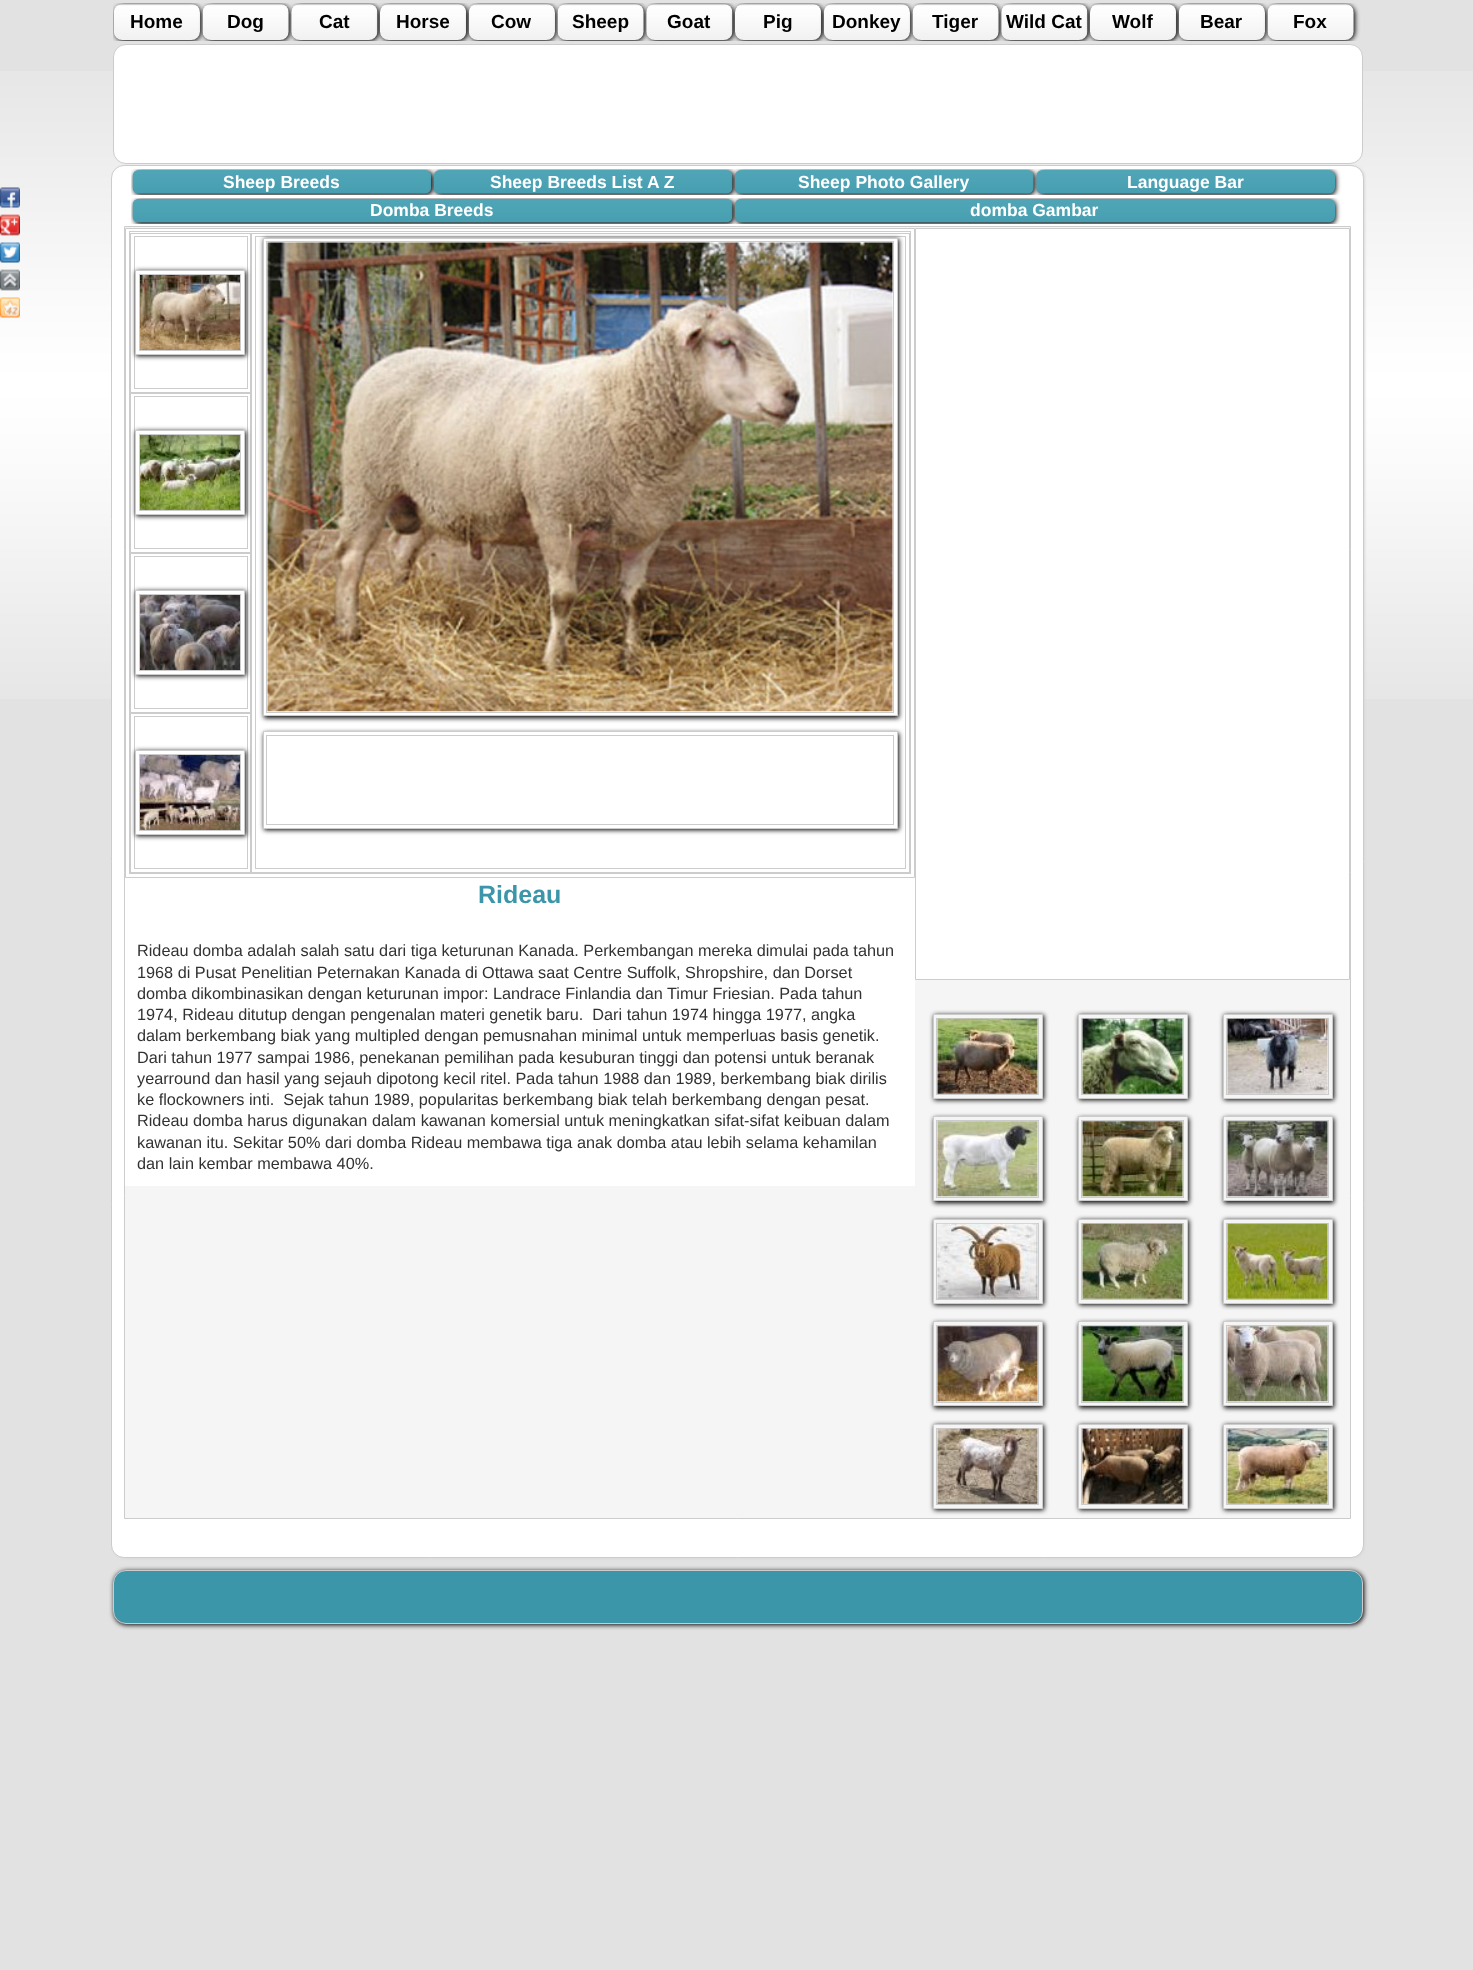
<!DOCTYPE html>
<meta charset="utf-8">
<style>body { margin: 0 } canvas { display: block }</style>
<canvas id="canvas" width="1473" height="1970"></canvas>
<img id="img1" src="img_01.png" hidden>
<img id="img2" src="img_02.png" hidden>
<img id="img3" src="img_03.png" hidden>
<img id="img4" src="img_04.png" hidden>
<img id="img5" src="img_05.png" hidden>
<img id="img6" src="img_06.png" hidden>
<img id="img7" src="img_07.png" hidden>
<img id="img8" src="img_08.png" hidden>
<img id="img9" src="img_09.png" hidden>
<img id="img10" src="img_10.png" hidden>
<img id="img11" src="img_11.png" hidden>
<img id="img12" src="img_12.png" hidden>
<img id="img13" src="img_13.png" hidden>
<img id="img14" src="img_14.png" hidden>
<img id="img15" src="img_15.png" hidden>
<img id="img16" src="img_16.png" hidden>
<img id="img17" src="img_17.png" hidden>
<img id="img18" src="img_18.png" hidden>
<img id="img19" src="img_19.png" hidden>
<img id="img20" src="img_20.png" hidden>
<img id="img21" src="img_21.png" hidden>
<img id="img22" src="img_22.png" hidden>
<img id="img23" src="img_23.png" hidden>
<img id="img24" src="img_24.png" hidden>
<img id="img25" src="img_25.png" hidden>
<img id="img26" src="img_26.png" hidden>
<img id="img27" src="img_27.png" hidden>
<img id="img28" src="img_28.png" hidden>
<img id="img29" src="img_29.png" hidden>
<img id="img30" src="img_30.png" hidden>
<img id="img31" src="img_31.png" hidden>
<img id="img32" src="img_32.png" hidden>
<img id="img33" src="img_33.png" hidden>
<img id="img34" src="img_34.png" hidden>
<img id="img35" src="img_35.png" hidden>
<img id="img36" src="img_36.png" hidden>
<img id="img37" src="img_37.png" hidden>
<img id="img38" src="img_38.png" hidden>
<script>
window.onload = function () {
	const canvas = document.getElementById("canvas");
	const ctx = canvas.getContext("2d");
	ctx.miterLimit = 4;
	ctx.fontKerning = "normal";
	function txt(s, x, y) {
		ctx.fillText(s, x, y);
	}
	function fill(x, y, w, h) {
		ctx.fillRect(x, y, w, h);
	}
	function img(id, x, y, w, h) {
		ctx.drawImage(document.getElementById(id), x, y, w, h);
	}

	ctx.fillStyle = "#E2E2E2";
	fill(0, 0, 1473, 1970);
	img("img1", 0, 71, 1473, 628);
	ctx.fillStyle = "#FFFFFF";
	ctx.beginPath();
	ctx.roundRect(113.5, 44.5, 1249, 119, 12.5);
	ctx.fill();
	ctx.strokeStyle = "#CCCCCC";
	ctx.stroke();
	ctx.save();
	ctx.beginPath();
	ctx.rect(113, 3, 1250, 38);
	ctx.clip();
	ctx.fillStyle = "#000000";
	ctx.filter = "blur(2.5px)";
	ctx.beginPath();
	ctx.roundRect(115, 5, 86, 36, 9);
	ctx.fill();
	ctx.filter = "none";
	ctx.restore();
	img("img2", 113, 4, 87, 36);
	ctx.save();
	ctx.beginPath();
	ctx.rect(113, 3, 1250, 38);
	ctx.clip();
	ctx.fillStyle = "#000000";
	ctx.filter = "blur(2.5px)";
	ctx.beginPath();
	ctx.roundRect(204, 5, 86, 36, 9);
	ctx.fill();
	ctx.filter = "none";
	ctx.restore();
	img("img3", 202, 4, 87, 36);
	ctx.save();
	ctx.beginPath();
	ctx.rect(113, 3, 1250, 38);
	ctx.clip();
	ctx.fillStyle = "#000000";
	ctx.filter = "blur(2.5px)";
	ctx.beginPath();
	ctx.roundRect(293, 5, 86, 36, 9);
	ctx.fill();
	ctx.filter = "none";
	ctx.restore();
	img("img4", 291, 4, 87, 36);
	ctx.save();
	ctx.beginPath();
	ctx.rect(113, 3, 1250, 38);
	ctx.clip();
	ctx.fillStyle = "#000000";
	ctx.filter = "blur(2.5px)";
	ctx.beginPath();
	ctx.roundRect(381, 5, 87, 36, 9);
	ctx.fill();
	ctx.filter = "none";
	ctx.restore();
	img("img5", 380, 4, 87, 36);
	ctx.save();
	ctx.beginPath();
	ctx.rect(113, 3, 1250, 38);
	ctx.clip();
	ctx.fillStyle = "#000000";
	ctx.filter = "blur(2.5px)";
	ctx.beginPath();
	ctx.roundRect(470, 5, 86, 36, 9);
	ctx.fill();
	ctx.filter = "none";
	ctx.restore();
	img("img6", 468, 4, 87, 36);
	ctx.save();
	ctx.beginPath();
	ctx.rect(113, 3, 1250, 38);
	ctx.clip();
	ctx.fillStyle = "#000000";
	ctx.filter = "blur(2.5px)";
	ctx.beginPath();
	ctx.roundRect(559, 5, 86, 36, 9);
	ctx.fill();
	ctx.filter = "none";
	ctx.restore();
	img("img3", 557, 4, 87, 36);
	ctx.save();
	ctx.beginPath();
	ctx.rect(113, 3, 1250, 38);
	ctx.clip();
	ctx.fillStyle = "#000000";
	ctx.filter = "blur(2.5px)";
	ctx.beginPath();
	ctx.roundRect(648, 5, 86, 36, 9);
	ctx.fill();
	ctx.filter = "none";
	ctx.restore();
	img("img4", 646, 4, 87, 36);
	ctx.save();
	ctx.beginPath();
	ctx.rect(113, 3, 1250, 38);
	ctx.clip();
	ctx.fillStyle = "#000000";
	ctx.filter = "blur(2.5px)";
	ctx.beginPath();
	ctx.roundRect(736, 5, 87, 36, 9);
	ctx.fill();
	ctx.filter = "none";
	ctx.restore();
	img("img5", 735, 4, 87, 36);
	ctx.save();
	ctx.beginPath();
	ctx.rect(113, 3, 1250, 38);
	ctx.clip();
	ctx.fillStyle = "#000000";
	ctx.filter = "blur(2.5px)";
	ctx.beginPath();
	ctx.roundRect(825, 5, 86, 36, 9);
	ctx.fill();
	ctx.filter = "none";
	ctx.restore();
	img("img6", 823, 4, 87, 36);
	ctx.save();
	ctx.beginPath();
	ctx.rect(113, 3, 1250, 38);
	ctx.clip();
	ctx.fillStyle = "#000000";
	ctx.filter = "blur(2.5px)";
	ctx.beginPath();
	ctx.roundRect(914, 5, 86, 36, 9);
	ctx.fill();
	ctx.filter = "none";
	ctx.restore();
	img("img3", 912, 4, 87, 36);
	ctx.save();
	ctx.beginPath();
	ctx.rect(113, 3, 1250, 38);
	ctx.clip();
	ctx.fillStyle = "#000000";
	ctx.filter = "blur(2.5px)";
	ctx.beginPath();
	ctx.roundRect(1003, 5, 86, 36, 9);
	ctx.fill();
	ctx.filter = "none";
	ctx.restore();
	img("img4", 1001, 4, 87, 36);
	ctx.save();
	ctx.beginPath();
	ctx.rect(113, 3, 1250, 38);
	ctx.clip();
	ctx.fillStyle = "#000000";
	ctx.filter = "blur(2.5px)";
	ctx.beginPath();
	ctx.roundRect(1091, 5, 87, 36, 9);
	ctx.fill();
	ctx.filter = "none";
	ctx.restore();
	img("img5", 1090, 4, 87, 36);
	ctx.save();
	ctx.beginPath();
	ctx.rect(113, 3, 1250, 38);
	ctx.clip();
	ctx.fillStyle = "#000000";
	ctx.filter = "blur(2.5px)";
	ctx.beginPath();
	ctx.roundRect(1180, 5, 86, 36, 9);
	ctx.fill();
	ctx.filter = "none";
	ctx.restore();
	img("img6", 1178, 4, 87, 36);
	ctx.save();
	ctx.beginPath();
	ctx.rect(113, 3, 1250, 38);
	ctx.clip();
	ctx.fillStyle = "#000000";
	ctx.filter = "blur(2.5px)";
	ctx.beginPath();
	ctx.roundRect(1269, 5, 86, 36, 9);
	ctx.fill();
	ctx.filter = "none";
	ctx.restore();
	img("img7", 1267, 4, 87, 36);
	img("img8", 0, 187, 20, 21);
	img("img9", 0, 214, 20, 22);
	img("img10", 0, 242, 20, 21);
	img("img11", 0, 269, 20, 22);
	img("img12", 0, 297, 20, 21);
	ctx.fillStyle = "#DADADA";
	ctx.filter = "blur(1px)";
	ctx.beginPath();
	ctx.roundRect(113, 166, 1252, 1393, 13);
	ctx.fill();
	ctx.filter = "none";
	ctx.fillStyle = "#FFFFFF";
	ctx.beginPath();
	ctx.roundRect(111.5, 165.5, 1252, 1392, 12.5);
	ctx.fill();
	ctx.stroke();
	ctx.save();
	ctx.beginPath();
	ctx.rect(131, 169, 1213, 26);
	ctx.clip();
	ctx.fillStyle = "#000000";
	ctx.filter = "blur(2.5px)";
	ctx.beginPath();
	ctx.roundRect(134, 171, 299, 24, 6);
	ctx.fill();
	ctx.filter = "none";
	ctx.restore();
	img("img13", 132, 170, 300, 24);
	ctx.save();
	ctx.beginPath();
	ctx.rect(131, 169, 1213, 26);
	ctx.clip();
	ctx.fillStyle = "#000000";
	ctx.filter = "blur(2.5px)";
	ctx.beginPath();
	ctx.roundRect(435, 171, 299, 24, 6);
	ctx.fill();
	ctx.filter = "none";
	ctx.restore();
	img("img14", 433, 170, 300, 24);
	ctx.save();
	ctx.beginPath();
	ctx.rect(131, 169, 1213, 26);
	ctx.clip();
	ctx.fillStyle = "#000000";
	ctx.filter = "blur(2.5px)";
	ctx.beginPath();
	ctx.roundRect(736, 171, 299, 24, 6);
	ctx.fill();
	ctx.filter = "none";
	ctx.restore();
	img("img15", 735, 170, 299, 24);
	ctx.save();
	ctx.beginPath();
	ctx.rect(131, 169, 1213, 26);
	ctx.clip();
	ctx.fillStyle = "#000000";
	ctx.filter = "blur(2.5px)";
	ctx.beginPath();
	ctx.roundRect(1038, 171, 298, 24, 6);
	ctx.fill();
	ctx.filter = "none";
	ctx.restore();
	img("img16", 1036, 170, 299, 24);
	ctx.fillStyle = "#F5F5F5";
	ctx.beginPath();
	ctx.rect(124.5, 226.5, 1226, 1292);
	ctx.fill();
	ctx.stroke();
	ctx.fillStyle = "#FFFFFF";
	ctx.beginPath();
	ctx.rect(125.5, 228.5, 789, 649);
	ctx.fill();
	ctx.stroke();
	ctx.strokeRect(129.5, 231.5, 781, 642);
	ctx.save();
	ctx.beginPath();
	ctx.rect(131, 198, 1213, 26);
	ctx.clip();
	ctx.fillStyle = "#000000";
	ctx.filter = "blur(2.5px)";
	ctx.beginPath();
	ctx.roundRect(134, 200, 600, 24, 6);
	ctx.fill();
	ctx.filter = "none";
	ctx.restore();
	img("img17", 132, 198, 601, 25);
	ctx.beginPath();
	ctx.rect(915.5, 228.5, 434, 751);
	ctx.fill();
	ctx.stroke();
	ctx.save();
	ctx.beginPath();
	ctx.rect(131, 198, 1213, 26);
	ctx.clip();
	ctx.fillStyle = "#000000";
	ctx.filter = "blur(2.5px)";
	ctx.beginPath();
	ctx.roundRect(736, 200, 600, 24, 6);
	ctx.fill();
	ctx.filter = "none";
	ctx.restore();
	img("img18", 735, 198, 600, 25);
	ctx.strokeRect(130.5, 233.5, 120, 159);
	ctx.strokeRect(134.5, 236.5, 113, 152);
	ctx.strokeRect(251.5, 233.5, 658, 639);
	ctx.save();
	ctx.beginPath();
	ctx.moveTo(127, 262);
	ctx.lineTo(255, 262);
	ctx.lineTo(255, 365);
	ctx.lineTo(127, 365);
	ctx.closePath();
	ctx.moveTo(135, 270);
	ctx.lineTo(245, 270);
	ctx.lineTo(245, 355);
	ctx.lineTo(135, 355);
	ctx.closePath();
	ctx.clip("evenodd");
	ctx.fillStyle = "#000000";
	ctx.filter = "blur(2.5px)";
	ctx.beginPath();
	ctx.rect(136, 271, 110, 85);
	ctx.fill();
	ctx.filter = "none";
	ctx.restore();
	ctx.strokeRect(135.5, 270.5, 109, 84);
	ctx.strokeRect(139.5, 274.5, 101, 76);
	img("img19", 140, 275, 100, 75);
	ctx.strokeRect(255.5, 236.5, 650, 632);
	ctx.save();
	ctx.beginPath();
	ctx.moveTo(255, 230);
	ctx.lineTo(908, 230);
	ctx.lineTo(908, 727);
	ctx.lineTo(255, 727);
	ctx.closePath();
	ctx.moveTo(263, 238);
	ctx.lineTo(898, 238);
	ctx.lineTo(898, 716);
	ctx.lineTo(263, 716);
	ctx.closePath();
	ctx.clip("evenodd");
	ctx.fillStyle = "#000000";
	ctx.filter = "blur(2.5px)";
	ctx.beginPath();
	ctx.rect(264, 239, 635, 479);
	ctx.fill();
	ctx.filter = "none";
	ctx.restore();
	ctx.strokeRect(263.5, 238.5, 634, 477);
	ctx.strokeRect(266.5, 241.5, 627, 471);
	img("img20", 267, 242, 626, 470);
	ctx.save();
	ctx.beginPath();
	ctx.moveTo(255, 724);
	ctx.lineTo(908, 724);
	ctx.lineTo(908, 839);
	ctx.lineTo(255, 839);
	ctx.closePath();
	ctx.moveTo(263, 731);
	ctx.lineTo(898, 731);
	ctx.lineTo(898, 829);
	ctx.lineTo(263, 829);
	ctx.closePath();
	ctx.clip("evenodd");
	ctx.fillStyle = "#000000";
	ctx.filter = "blur(2.5px)";
	ctx.beginPath();
	ctx.rect(264, 733, 635, 97);
	ctx.fill();
	ctx.filter = "none";
	ctx.restore();
	ctx.strokeRect(263.5, 731.5, 634, 97);
	ctx.strokeRect(266.5, 735.5, 627, 89);
	ctx.strokeRect(130.5, 393.5, 120, 159);
	ctx.strokeRect(134.5, 396.5, 113, 152);
	ctx.save();
	ctx.beginPath();
	ctx.moveTo(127, 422);
	ctx.lineTo(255, 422);
	ctx.lineTo(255, 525);
	ctx.lineTo(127, 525);
	ctx.closePath();
	ctx.moveTo(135, 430);
	ctx.lineTo(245, 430);
	ctx.lineTo(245, 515);
	ctx.lineTo(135, 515);
	ctx.closePath();
	ctx.clip("evenodd");
	ctx.fillStyle = "#000000";
	ctx.filter = "blur(2.5px)";
	ctx.beginPath();
	ctx.rect(136, 431, 110, 85);
	ctx.fill();
	ctx.filter = "none";
	ctx.restore();
	ctx.strokeRect(135.5, 430.5, 109, 84);
	ctx.strokeRect(139.5, 434.5, 101, 76);
	img("img21", 140, 435, 100, 75);
	ctx.strokeRect(130.5, 553.5, 120, 159);
	ctx.strokeRect(134.5, 556.5, 113, 152);
	ctx.save();
	ctx.beginPath();
	ctx.moveTo(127, 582);
	ctx.lineTo(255, 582);
	ctx.lineTo(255, 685);
	ctx.lineTo(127, 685);
	ctx.closePath();
	ctx.moveTo(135, 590);
	ctx.lineTo(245, 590);
	ctx.lineTo(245, 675);
	ctx.lineTo(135, 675);
	ctx.closePath();
	ctx.clip("evenodd");
	ctx.fillStyle = "#000000";
	ctx.filter = "blur(2.5px)";
	ctx.beginPath();
	ctx.rect(136, 591, 110, 85);
	ctx.fill();
	ctx.filter = "none";
	ctx.restore();
	ctx.strokeRect(135.5, 590.5, 109, 84);
	ctx.strokeRect(139.5, 594.5, 101, 76);
	img("img22", 140, 595, 100, 75);
	ctx.strokeRect(130.5, 713.5, 120, 159);
	ctx.strokeRect(134.5, 716.5, 113, 152);
	ctx.save();
	ctx.beginPath();
	ctx.moveTo(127, 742);
	ctx.lineTo(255, 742);
	ctx.lineTo(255, 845);
	ctx.lineTo(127, 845);
	ctx.closePath();
	ctx.moveTo(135, 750);
	ctx.lineTo(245, 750);
	ctx.lineTo(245, 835);
	ctx.lineTo(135, 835);
	ctx.closePath();
	ctx.clip("evenodd");
	ctx.fillStyle = "#000000";
	ctx.filter = "blur(2.5px)";
	ctx.beginPath();
	ctx.rect(136, 751, 110, 85);
	ctx.fill();
	ctx.filter = "none";
	ctx.restore();
	ctx.strokeRect(135.5, 750.5, 109, 84);
	ctx.strokeRect(139.5, 754.5, 101, 76);
	img("img23", 140, 755, 100, 75);
	fill(125, 878, 790, 308);
	ctx.save();
	ctx.beginPath();
	ctx.moveTo(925, 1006);
	ctx.lineTo(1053, 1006);
	ctx.lineTo(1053, 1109);
	ctx.lineTo(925, 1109);
	ctx.closePath();
	ctx.moveTo(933, 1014);
	ctx.lineTo(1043, 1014);
	ctx.lineTo(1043, 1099);
	ctx.lineTo(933, 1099);
	ctx.closePath();
	ctx.clip("evenodd");
	ctx.fillStyle = "#000000";
	ctx.filter = "blur(2.5px)";
	ctx.beginPath();
	ctx.rect(934, 1015, 110, 85);
	ctx.fill();
	ctx.filter = "none";
	ctx.restore();
	ctx.strokeRect(933.5, 1014.5, 109, 84);
	ctx.strokeRect(936.5, 1018.5, 102, 76);
	img("img24", 937, 1018, 101, 76);
	ctx.save();
	ctx.beginPath();
	ctx.moveTo(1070, 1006);
	ctx.lineTo(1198, 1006);
	ctx.lineTo(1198, 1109);
	ctx.lineTo(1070, 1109);
	ctx.closePath();
	ctx.moveTo(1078, 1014);
	ctx.lineTo(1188, 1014);
	ctx.lineTo(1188, 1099);
	ctx.lineTo(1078, 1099);
	ctx.closePath();
	ctx.clip("evenodd");
	ctx.fillStyle = "#000000";
	ctx.filter = "blur(2.5px)";
	ctx.beginPath();
	ctx.rect(1079, 1015, 110, 85);
	ctx.fill();
	ctx.filter = "none";
	ctx.restore();
	ctx.strokeRect(1078.5, 1014.5, 109, 84);
	ctx.strokeRect(1081.5, 1018.5, 102, 76);
	img("img25", 1082, 1018, 101, 76);
	ctx.save();
	ctx.beginPath();
	ctx.moveTo(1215, 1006);
	ctx.lineTo(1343, 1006);
	ctx.lineTo(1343, 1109);
	ctx.lineTo(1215, 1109);
	ctx.closePath();
	ctx.moveTo(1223, 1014);
	ctx.lineTo(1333, 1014);
	ctx.lineTo(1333, 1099);
	ctx.lineTo(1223, 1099);
	ctx.closePath();
	ctx.clip("evenodd");
	ctx.fillStyle = "#000000";
	ctx.filter = "blur(2.5px)";
	ctx.beginPath();
	ctx.rect(1224, 1015, 110, 85);
	ctx.fill();
	ctx.filter = "none";
	ctx.restore();
	ctx.strokeRect(1223.5, 1014.5, 109, 84);
	ctx.strokeRect(1226.5, 1018.5, 102, 76);
	img("img26", 1227, 1018, 101, 76);
	ctx.save();
	ctx.beginPath();
	ctx.moveTo(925, 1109);
	ctx.lineTo(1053, 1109);
	ctx.lineTo(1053, 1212);
	ctx.lineTo(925, 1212);
	ctx.closePath();
	ctx.moveTo(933, 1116);
	ctx.lineTo(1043, 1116);
	ctx.lineTo(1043, 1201);
	ctx.lineTo(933, 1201);
	ctx.closePath();
	ctx.clip("evenodd");
	ctx.fillStyle = "#000000";
	ctx.filter = "blur(2.5px)";
	ctx.beginPath();
	ctx.rect(934, 1118, 110, 85);
	ctx.fill();
	ctx.filter = "none";
	ctx.restore();
	ctx.strokeRect(933.5, 1116.5, 109, 84);
	ctx.strokeRect(936.5, 1120.5, 102, 77);
	img("img27", 937, 1121, 101, 76);
	ctx.save();
	ctx.beginPath();
	ctx.moveTo(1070, 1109);
	ctx.lineTo(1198, 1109);
	ctx.lineTo(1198, 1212);
	ctx.lineTo(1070, 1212);
	ctx.closePath();
	ctx.moveTo(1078, 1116);
	ctx.lineTo(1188, 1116);
	ctx.lineTo(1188, 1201);
	ctx.lineTo(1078, 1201);
	ctx.closePath();
	ctx.clip("evenodd");
	ctx.fillStyle = "#000000";
	ctx.filter = "blur(2.5px)";
	ctx.beginPath();
	ctx.rect(1079, 1118, 110, 85);
	ctx.fill();
	ctx.filter = "none";
	ctx.restore();
	ctx.strokeRect(1078.5, 1116.5, 109, 84);
	ctx.strokeRect(1081.5, 1120.5, 102, 77);
	img("img28", 1082, 1121, 101, 76);
	ctx.save();
	ctx.beginPath();
	ctx.moveTo(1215, 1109);
	ctx.lineTo(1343, 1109);
	ctx.lineTo(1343, 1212);
	ctx.lineTo(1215, 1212);
	ctx.closePath();
	ctx.moveTo(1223, 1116);
	ctx.lineTo(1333, 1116);
	ctx.lineTo(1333, 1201);
	ctx.lineTo(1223, 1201);
	ctx.closePath();
	ctx.clip("evenodd");
	ctx.fillStyle = "#000000";
	ctx.filter = "blur(2.5px)";
	ctx.beginPath();
	ctx.rect(1224, 1118, 110, 85);
	ctx.fill();
	ctx.filter = "none";
	ctx.restore();
	ctx.strokeRect(1223.5, 1116.5, 109, 84);
	ctx.strokeRect(1226.5, 1120.5, 102, 77);
	img("img29", 1227, 1121, 101, 76);
	ctx.save();
	ctx.beginPath();
	ctx.moveTo(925, 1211);
	ctx.lineTo(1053, 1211);
	ctx.lineTo(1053, 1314);
	ctx.lineTo(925, 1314);
	ctx.closePath();
	ctx.moveTo(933, 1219);
	ctx.lineTo(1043, 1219);
	ctx.lineTo(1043, 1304);
	ctx.lineTo(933, 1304);
	ctx.closePath();
	ctx.clip("evenodd");
	ctx.fillStyle = "#000000";
	ctx.filter = "blur(2.5px)";
	ctx.beginPath();
	ctx.rect(934, 1220, 110, 85);
	ctx.fill();
	ctx.filter = "none";
	ctx.restore();
	ctx.strokeRect(933.5, 1219.5, 109, 84);
	ctx.strokeRect(936.5, 1223.5, 102, 76);
	img("img30", 937, 1223, 101, 76);
	ctx.save();
	ctx.beginPath();
	ctx.moveTo(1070, 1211);
	ctx.lineTo(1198, 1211);
	ctx.lineTo(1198, 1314);
	ctx.lineTo(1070, 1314);
	ctx.closePath();
	ctx.moveTo(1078, 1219);
	ctx.lineTo(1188, 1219);
	ctx.lineTo(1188, 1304);
	ctx.lineTo(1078, 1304);
	ctx.closePath();
	ctx.clip("evenodd");
	ctx.fillStyle = "#000000";
	ctx.filter = "blur(2.5px)";
	ctx.beginPath();
	ctx.rect(1079, 1220, 110, 85);
	ctx.fill();
	ctx.filter = "none";
	ctx.restore();
	ctx.strokeRect(1078.5, 1219.5, 109, 84);
	ctx.strokeRect(1081.5, 1223.5, 102, 76);
	img("img31", 1082, 1223, 101, 76);
	ctx.save();
	ctx.beginPath();
	ctx.moveTo(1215, 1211);
	ctx.lineTo(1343, 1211);
	ctx.lineTo(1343, 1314);
	ctx.lineTo(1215, 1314);
	ctx.closePath();
	ctx.moveTo(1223, 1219);
	ctx.lineTo(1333, 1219);
	ctx.lineTo(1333, 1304);
	ctx.lineTo(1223, 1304);
	ctx.closePath();
	ctx.clip("evenodd");
	ctx.fillStyle = "#000000";
	ctx.filter = "blur(2.5px)";
	ctx.beginPath();
	ctx.rect(1224, 1220, 110, 85);
	ctx.fill();
	ctx.filter = "none";
	ctx.restore();
	ctx.strokeRect(1223.5, 1219.5, 109, 84);
	ctx.strokeRect(1226.5, 1223.5, 102, 76);
	img("img32", 1227, 1223, 101, 76);
	ctx.save();
	ctx.beginPath();
	ctx.moveTo(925, 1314);
	ctx.lineTo(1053, 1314);
	ctx.lineTo(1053, 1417);
	ctx.lineTo(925, 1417);
	ctx.closePath();
	ctx.moveTo(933, 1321);
	ctx.lineTo(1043, 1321);
	ctx.lineTo(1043, 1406);
	ctx.lineTo(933, 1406);
	ctx.closePath();
	ctx.clip("evenodd");
	ctx.fillStyle = "#000000";
	ctx.filter = "blur(2.5px)";
	ctx.beginPath();
	ctx.rect(934, 1323, 110, 85);
	ctx.fill();
	ctx.filter = "none";
	ctx.restore();
	ctx.strokeRect(933.5, 1321.5, 109, 84);
	ctx.strokeRect(936.5, 1325.5, 102, 77);
	img("img33", 937, 1326, 101, 76);
	ctx.save();
	ctx.beginPath();
	ctx.moveTo(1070, 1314);
	ctx.lineTo(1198, 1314);
	ctx.lineTo(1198, 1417);
	ctx.lineTo(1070, 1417);
	ctx.closePath();
	ctx.moveTo(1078, 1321);
	ctx.lineTo(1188, 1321);
	ctx.lineTo(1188, 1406);
	ctx.lineTo(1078, 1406);
	ctx.closePath();
	ctx.clip("evenodd");
	ctx.fillStyle = "#000000";
	ctx.filter = "blur(2.5px)";
	ctx.beginPath();
	ctx.rect(1079, 1323, 110, 85);
	ctx.fill();
	ctx.filter = "none";
	ctx.restore();
	ctx.strokeRect(1078.5, 1321.5, 109, 84);
	ctx.strokeRect(1081.5, 1325.5, 102, 77);
	img("img34", 1082, 1326, 101, 76);
	ctx.save();
	ctx.beginPath();
	ctx.moveTo(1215, 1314);
	ctx.lineTo(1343, 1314);
	ctx.lineTo(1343, 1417);
	ctx.lineTo(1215, 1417);
	ctx.closePath();
	ctx.moveTo(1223, 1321);
	ctx.lineTo(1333, 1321);
	ctx.lineTo(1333, 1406);
	ctx.lineTo(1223, 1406);
	ctx.closePath();
	ctx.clip("evenodd");
	ctx.fillStyle = "#000000";
	ctx.filter = "blur(2.5px)";
	ctx.beginPath();
	ctx.rect(1224, 1323, 110, 85);
	ctx.fill();
	ctx.filter = "none";
	ctx.restore();
	ctx.strokeRect(1223.5, 1321.5, 109, 84);
	ctx.strokeRect(1226.5, 1325.5, 102, 77);
	img("img35", 1227, 1326, 101, 76);
	ctx.save();
	ctx.beginPath();
	ctx.moveTo(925, 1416);
	ctx.lineTo(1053, 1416);
	ctx.lineTo(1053, 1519);
	ctx.lineTo(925, 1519);
	ctx.closePath();
	ctx.moveTo(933, 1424);
	ctx.lineTo(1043, 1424);
	ctx.lineTo(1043, 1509);
	ctx.lineTo(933, 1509);
	ctx.closePath();
	ctx.clip("evenodd");
	ctx.fillStyle = "#000000";
	ctx.filter = "blur(2.5px)";
	ctx.beginPath();
	ctx.rect(934, 1425, 110, 85);
	ctx.fill();
	ctx.filter = "none";
	ctx.restore();
	ctx.strokeRect(933.5, 1424.5, 109, 84);
	ctx.strokeRect(936.5, 1428.5, 102, 76);
	img("img36", 937, 1428, 101, 76);
	ctx.save();
	ctx.beginPath();
	ctx.moveTo(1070, 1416);
	ctx.lineTo(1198, 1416);
	ctx.lineTo(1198, 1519);
	ctx.lineTo(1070, 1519);
	ctx.closePath();
	ctx.moveTo(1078, 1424);
	ctx.lineTo(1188, 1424);
	ctx.lineTo(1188, 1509);
	ctx.lineTo(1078, 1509);
	ctx.closePath();
	ctx.clip("evenodd");
	ctx.fillStyle = "#000000";
	ctx.filter = "blur(2.5px)";
	ctx.beginPath();
	ctx.rect(1079, 1425, 110, 85);
	ctx.fill();
	ctx.filter = "none";
	ctx.restore();
	ctx.strokeRect(1078.5, 1424.5, 109, 84);
	ctx.strokeRect(1081.5, 1428.5, 102, 76);
	img("img37", 1082, 1428, 101, 76);
	ctx.save();
	ctx.beginPath();
	ctx.moveTo(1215, 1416);
	ctx.lineTo(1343, 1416);
	ctx.lineTo(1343, 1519);
	ctx.lineTo(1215, 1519);
	ctx.closePath();
	ctx.moveTo(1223, 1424);
	ctx.lineTo(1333, 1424);
	ctx.lineTo(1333, 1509);
	ctx.lineTo(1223, 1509);
	ctx.closePath();
	ctx.clip("evenodd");
	ctx.fillStyle = "#000000";
	ctx.filter = "blur(2.5px)";
	ctx.beginPath();
	ctx.rect(1224, 1425, 110, 85);
	ctx.fill();
	ctx.filter = "none";
	ctx.restore();
	ctx.strokeRect(1223.5, 1424.5, 109, 84);
	ctx.strokeRect(1226.5, 1428.5, 102, 76);
	img("img38", 1227, 1428, 101, 76);
	ctx.fillStyle = "#000000";
	ctx.filter = "blur(2.5px)";
	ctx.beginPath();
	ctx.roundRect(114, 1571, 1250, 54, 13);
	ctx.fill();
	ctx.filter = "none";
	ctx.fillStyle = "#3C96AA";
	ctx.beginPath();
	ctx.roundRect(113.5, 1570.5, 1249, 53, 12.5);
	ctx.fill();
	ctx.stroke();
	ctx.font = "bold 19px Liberation Sans";
	ctx.fillStyle = "#000000";
	txt("Home", 130, 28);
	txt("Dog", 227, 28);
	txt("Cat", 319, 28);
	txt("Horse", 396, 28);
	txt("Cow", 491, 28);
	txt("Sheep", 572, 28);
	txt("Goat", 667, 28);
	txt("Pig", 763, 28);
	txt("Donkey", 832, 28);
	txt("Tiger", 932, 28);
	txt("Wild Cat", 1006, 28);
	txt("Wolf", 1112, 28);
	txt("Bear", 1200, 28);
	txt("Fox", 1293, 28);
	ctx.font = "bold 17.5px Liberation Sans";
	ctx.fillStyle = "#FFFFFF";
	txt("Sheep Breeds", 223, 188);
	txt("Sheep Breeds List A Z", 490, 188);
	txt("Sheep Photo Gallery", 798, 188);
	txt("Language Bar", 1127, 188);
	txt("Domba Breeds", 370, 216);
	txt("domba Gambar", 970, 216);
	ctx.font = "bold 25px Liberation Sans";
	ctx.fillStyle = "#3C96AA";
	txt("Rideau", 478, 903);
	ctx.font = "16.25px Liberation Sans";
	ctx.fillStyle = "#323232";
	txt("Rideau domba adalah salah satu dari tiga keturunan Kanada. Perkembangan mereka dimulai pada tahun", 137, 956);
	txt("1968 di Pusat Penelitian Peternakan Kanada di Ottawa saat Centre Suffolk, Shropshire, dan Dorset", 137, 978);
	txt("domba dikombinasikan dengan keturunan impor: Landrace Finlandia dan Timur Friesian. Pada tahun", 137, 999);
	txt("1974, Rideau ditutup dengan pengenalan materi genetik baru.  Dari tahun 1974 hingga 1977, angka", 137, 1020);
	txt("dalam berkembang biak yang multipled dengan pemusnahan minimal untuk memperluas basis genetik.", 137, 1041);
	txt("Dari tahun 1977 sampai 1986, penekanan pemilihan pada kesuburan tinggi dan potensi untuk beranak", 137, 1063);
	txt("yearround dan hasil yang sejauh dipotong kecil ritel. Pada tahun 1988 dan 1989, berkembang biak dirilis", 137, 1084);
	txt("ke flockowners inti.  Sejak tahun 1989, popularitas berkembang biak telah berkembang dengan pesat.", 137, 1105);
	txt("Rideau domba harus digunakan dalam kawanan komersial untuk meningkatkan sifat-sifat keibuan dalam", 137, 1126);
	txt("kawanan itu. Sekitar 50% dari domba Rideau membawa tiga anak domba atau lebih selama kehamilan", 137, 1148);
	txt("dan lain kembar membawa 40%.", 137, 1169);
};
</script>
